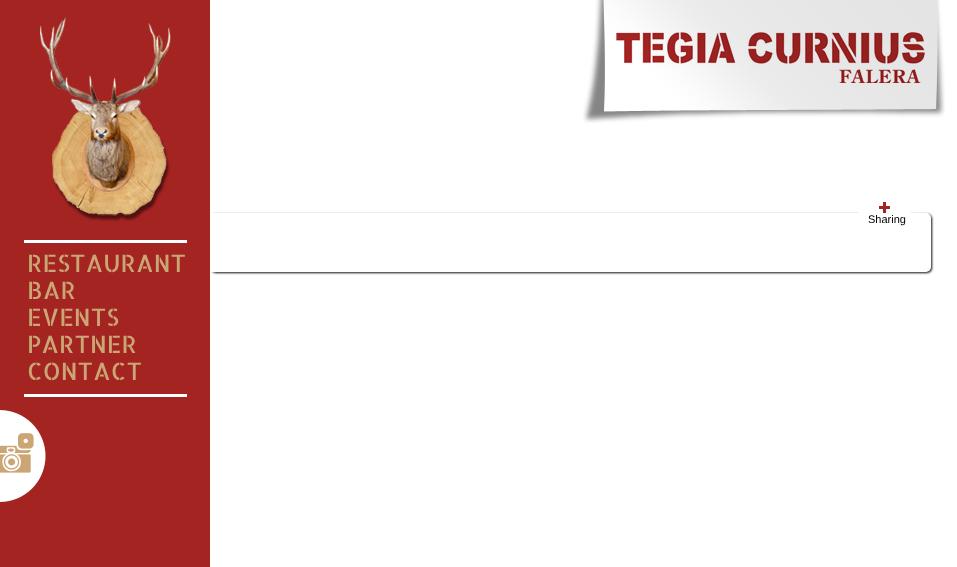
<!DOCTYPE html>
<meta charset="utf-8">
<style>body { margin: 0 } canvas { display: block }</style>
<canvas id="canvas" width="957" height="567"></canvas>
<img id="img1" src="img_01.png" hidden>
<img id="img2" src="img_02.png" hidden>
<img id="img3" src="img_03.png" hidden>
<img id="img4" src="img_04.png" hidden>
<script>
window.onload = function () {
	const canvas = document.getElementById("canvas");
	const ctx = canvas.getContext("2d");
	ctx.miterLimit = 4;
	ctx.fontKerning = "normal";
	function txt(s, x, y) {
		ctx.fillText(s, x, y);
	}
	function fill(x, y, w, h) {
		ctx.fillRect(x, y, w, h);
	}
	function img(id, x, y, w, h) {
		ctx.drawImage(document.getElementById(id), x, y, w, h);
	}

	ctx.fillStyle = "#FFFFFF";
	fill(0, 0, 957, 567);
	img("img1", 583, 0, 362, 123);
	ctx.fillStyle = "#111111";
	ctx.filter = "blur(1px)";
	ctx.beginPath();
	ctx.roundRect(211, 214, 721, 59, 5);
	ctx.fill();
	ctx.filter = "none";
	ctx.fillStyle = "#FFFFFF";
	ctx.beginPath();
	ctx.roundRect(210, 213, 721, 59, [0, 5, 5, 0]);
	ctx.fill();
	ctx.fillStyle = "#A42422";
	fill(879, 202, 11, 11);
	img("img2", 858, 201, 53, 12);
	fill(0, 0, 210, 567);
	img("img3", 40, 17, 131, 205);
	ctx.fillStyle = "#FFFFFF";
	fill(24, 240, 163, 3);
	fill(24, 394, 163, 3);
	ctx.fillStyle = "#CBA674";
	fill(0, 433, 34, 40);
	img("img4", 0, 410, 46, 92);
	ctx.font = "11px Liberation Sans";
	ctx.fillStyle = "#000000";
	txt("Sharing", 868, 223);
	ctx.font = "24px Allerta Stencil";
	ctx.fillStyle = "#CBA674";
	txt("RESTAURANT", 27, 272);
	txt("BAR", 27, 299);
	txt("EVENTS", 27, 326);
	txt("PARTNER", 27, 353);
	txt("CONTACT", 27, 380);
};
</script>
